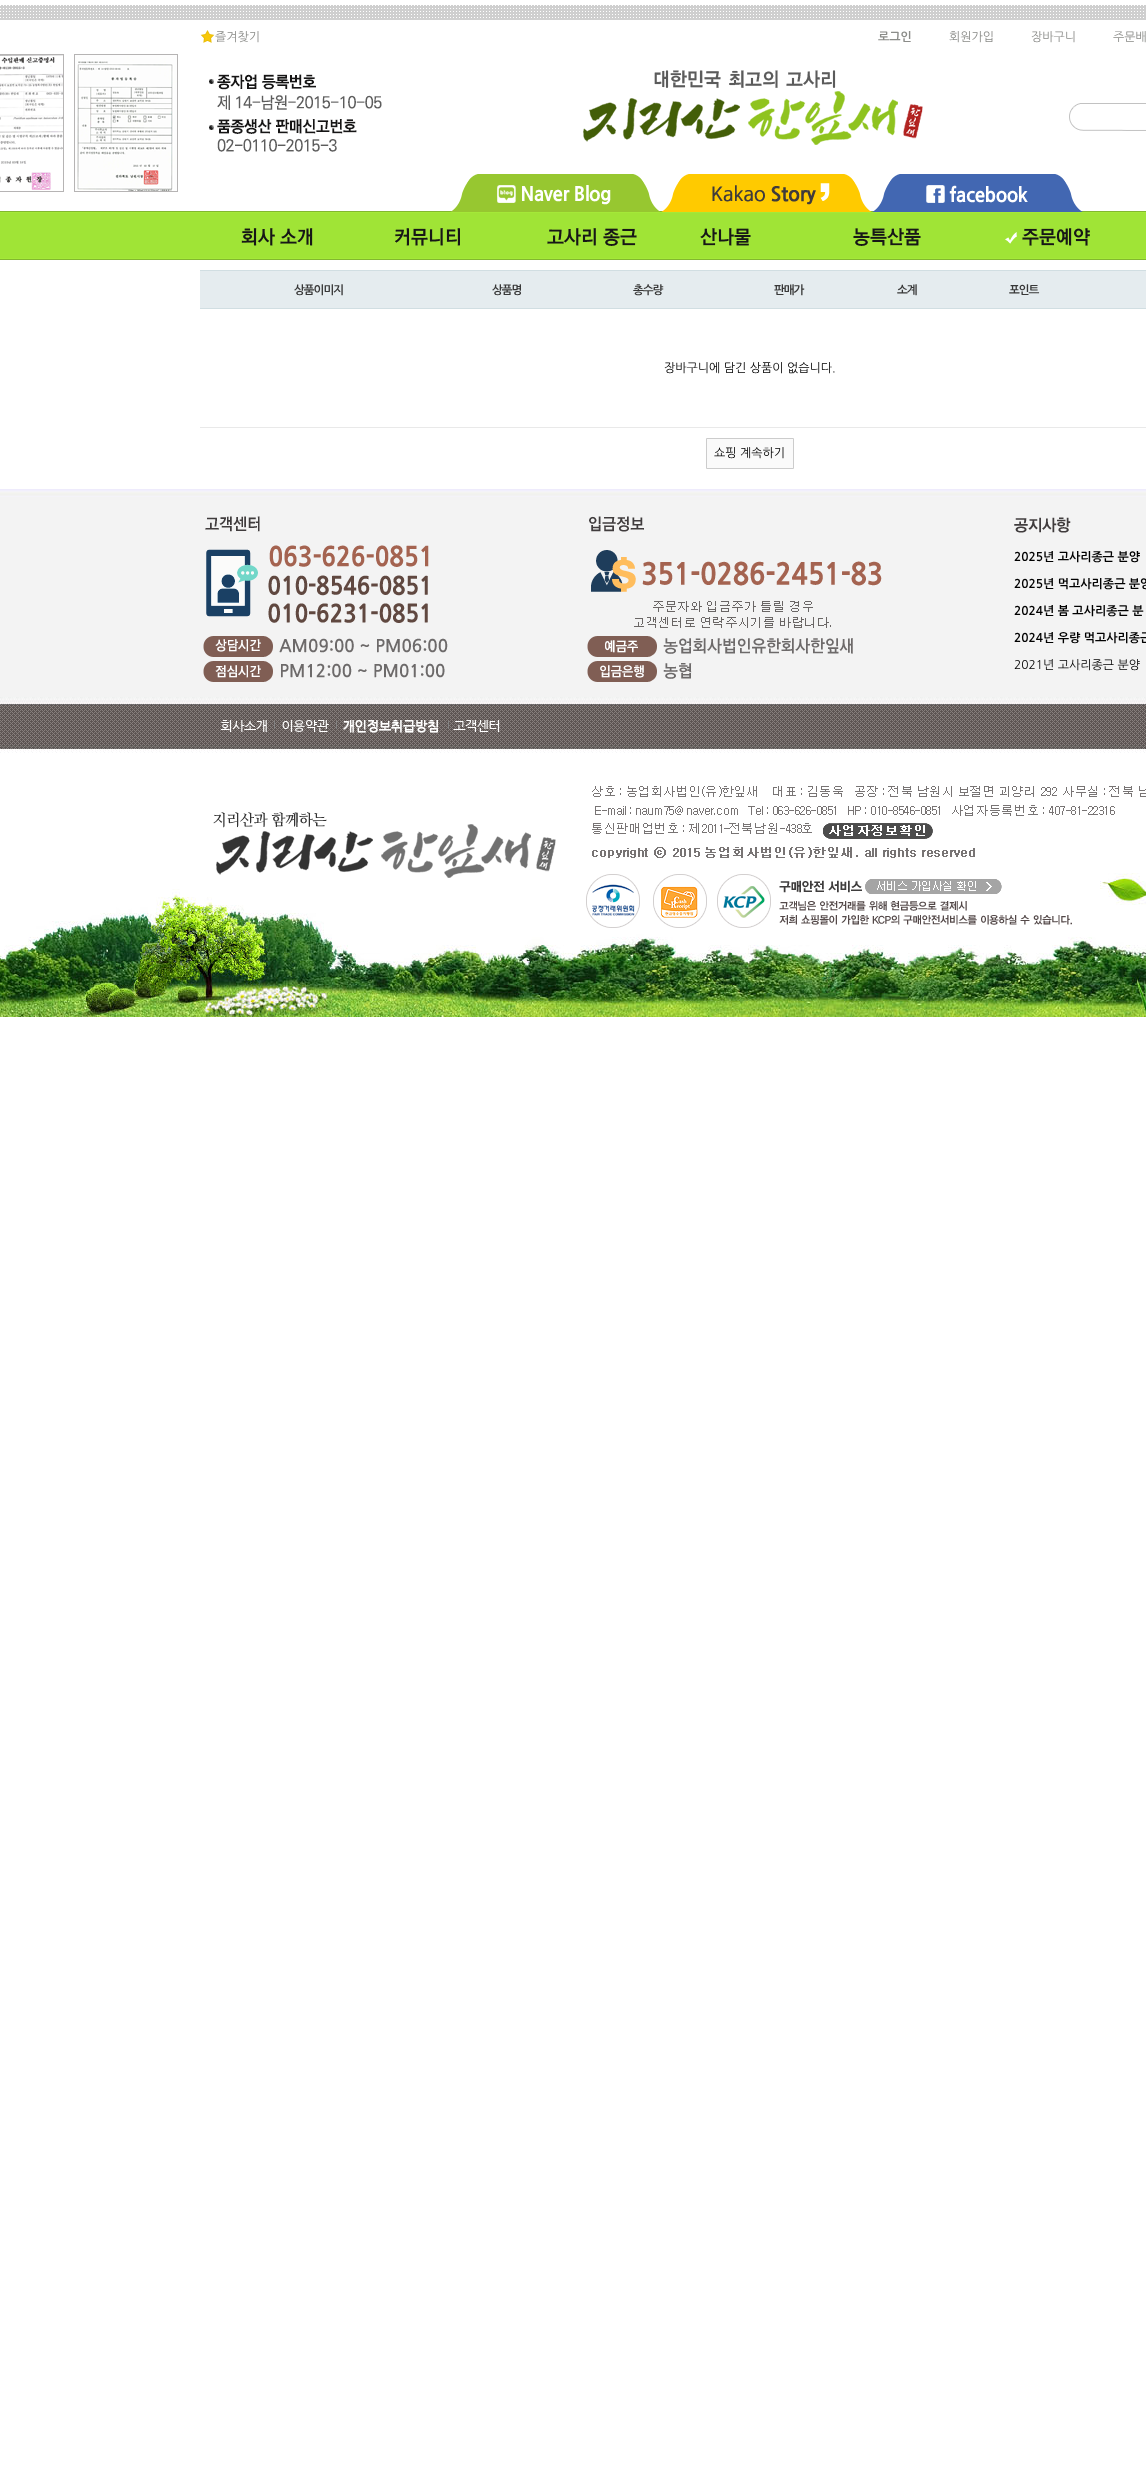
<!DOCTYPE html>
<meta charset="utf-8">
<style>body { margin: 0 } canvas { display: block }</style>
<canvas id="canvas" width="1146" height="2470"></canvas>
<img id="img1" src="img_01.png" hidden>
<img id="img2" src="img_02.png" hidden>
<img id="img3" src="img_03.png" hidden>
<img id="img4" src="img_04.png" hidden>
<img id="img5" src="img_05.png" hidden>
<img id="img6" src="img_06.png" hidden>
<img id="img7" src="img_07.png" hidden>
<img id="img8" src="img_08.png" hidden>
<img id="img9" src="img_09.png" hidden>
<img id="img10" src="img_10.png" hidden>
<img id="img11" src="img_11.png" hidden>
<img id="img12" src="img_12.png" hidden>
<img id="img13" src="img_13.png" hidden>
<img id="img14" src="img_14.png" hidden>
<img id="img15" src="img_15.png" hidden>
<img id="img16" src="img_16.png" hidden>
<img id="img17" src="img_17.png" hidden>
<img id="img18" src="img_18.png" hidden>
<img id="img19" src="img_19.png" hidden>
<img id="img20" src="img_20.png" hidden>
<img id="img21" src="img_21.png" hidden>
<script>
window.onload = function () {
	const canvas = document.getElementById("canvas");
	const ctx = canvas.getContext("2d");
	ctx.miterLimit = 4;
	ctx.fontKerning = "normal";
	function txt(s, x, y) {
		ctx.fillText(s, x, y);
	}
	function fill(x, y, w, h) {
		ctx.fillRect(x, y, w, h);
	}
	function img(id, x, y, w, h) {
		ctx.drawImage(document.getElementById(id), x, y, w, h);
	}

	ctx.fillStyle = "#FFFFFF";
	fill(0, 0, 1146, 2470);
	img("img1", 0, 5, 1146, 255);
	img("img2", 200, 30, 15, 13);
	img("img3", 0, 54, 64, 138);
	img("img4", 74, 54, 104, 138);
	img("img5", 209, 74, 173, 78);
	img("img6", 583, 70, 340, 75);
	img("img7", 1069, 103, 77, 28);
	img("img8", 451, 174, 209, 38);
	img("img9", 661, 174, 211, 38);
	img("img10", 872, 174, 211, 38);
	img("img11", 241, 228, 72, 18);
	img("img12", 395, 228, 65, 18);
	img("img13", 547, 228, 90, 18);
	img("img14", 700, 228, 51, 18);
	img("img15", 853, 228, 68, 18);
	img("img16", 1005, 228, 85, 18);
	ctx.fillStyle = "#D1DEE2";
	fill(200, 270, 946, 1);
	fill(200, 308, 946, 1);
	ctx.fillStyle = "#E5ECEF";
	fill(200, 271, 946, 37);
	ctx.fillStyle = "#E9E9E9";
	fill(200, 427, 946, 1);
	ctx.fillStyle = "#FAFAFA";
	ctx.beginPath();
	ctx.rect(706.5, 438.5, 87, 30);
	ctx.fill();
	ctx.strokeStyle = "#CCCCCC";
	ctx.stroke();
	img("img17", 0, 489, 1146, 528);
	img("img18", 203, 516, 245, 166);
	img("img19", 587, 516, 295, 166);
	img("img20", 1014, 517, 57, 16);
	img("img21", 213, 720, 933, 208);
	ctx.font = "12px NanumGothic";
	ctx.fillStyle = "#8B8C89";
	txt("즐겨찾기", 215, 41);
	ctx.font = "bold 12px NanumGothic";
	txt("로그인", 878, 41);
	ctx.font = "12px NanumGothic";
	txt("회원가입", 949, 41);
	txt("장바구니", 1031, 41);
	txt("주문배", 1113, 41);
	ctx.letterSpacing = "-1px";
	ctx.font = "bold 11.5px NanumGothic";
	ctx.fillStyle = "#383838";
	txt("상품이미지", 294, 294);
	txt("상품명", 492, 294);
	txt("총수량", 633, 294);
	txt("판매가", 774, 294);
	txt("소계", 897, 294);
	txt("포인트", 1009, 294);
	ctx.letterSpacing = "0px";
	ctx.font = "12px NanumGothic";
	ctx.fillStyle = "#000000";
	txt("장바구니에 담긴 상품이 없습니다.", 664, 372);
	txt("쇼핑 계속하기", 714, 457);
	ctx.font = "bold 12px NanumGothic";
	txt("2025년 고사리종근 분양", 1014, 561);
	txt("2025년 먹고사리종근 분양", 1014, 588);
	txt("2024년 봄 고사리종근 분", 1014, 615);
	txt("2024년 우량 먹고사리종근", 1014, 642);
	ctx.font = "12px NanumGothic";
	txt("2021년 고사리종근 분양", 1014, 669);
};
</script>
